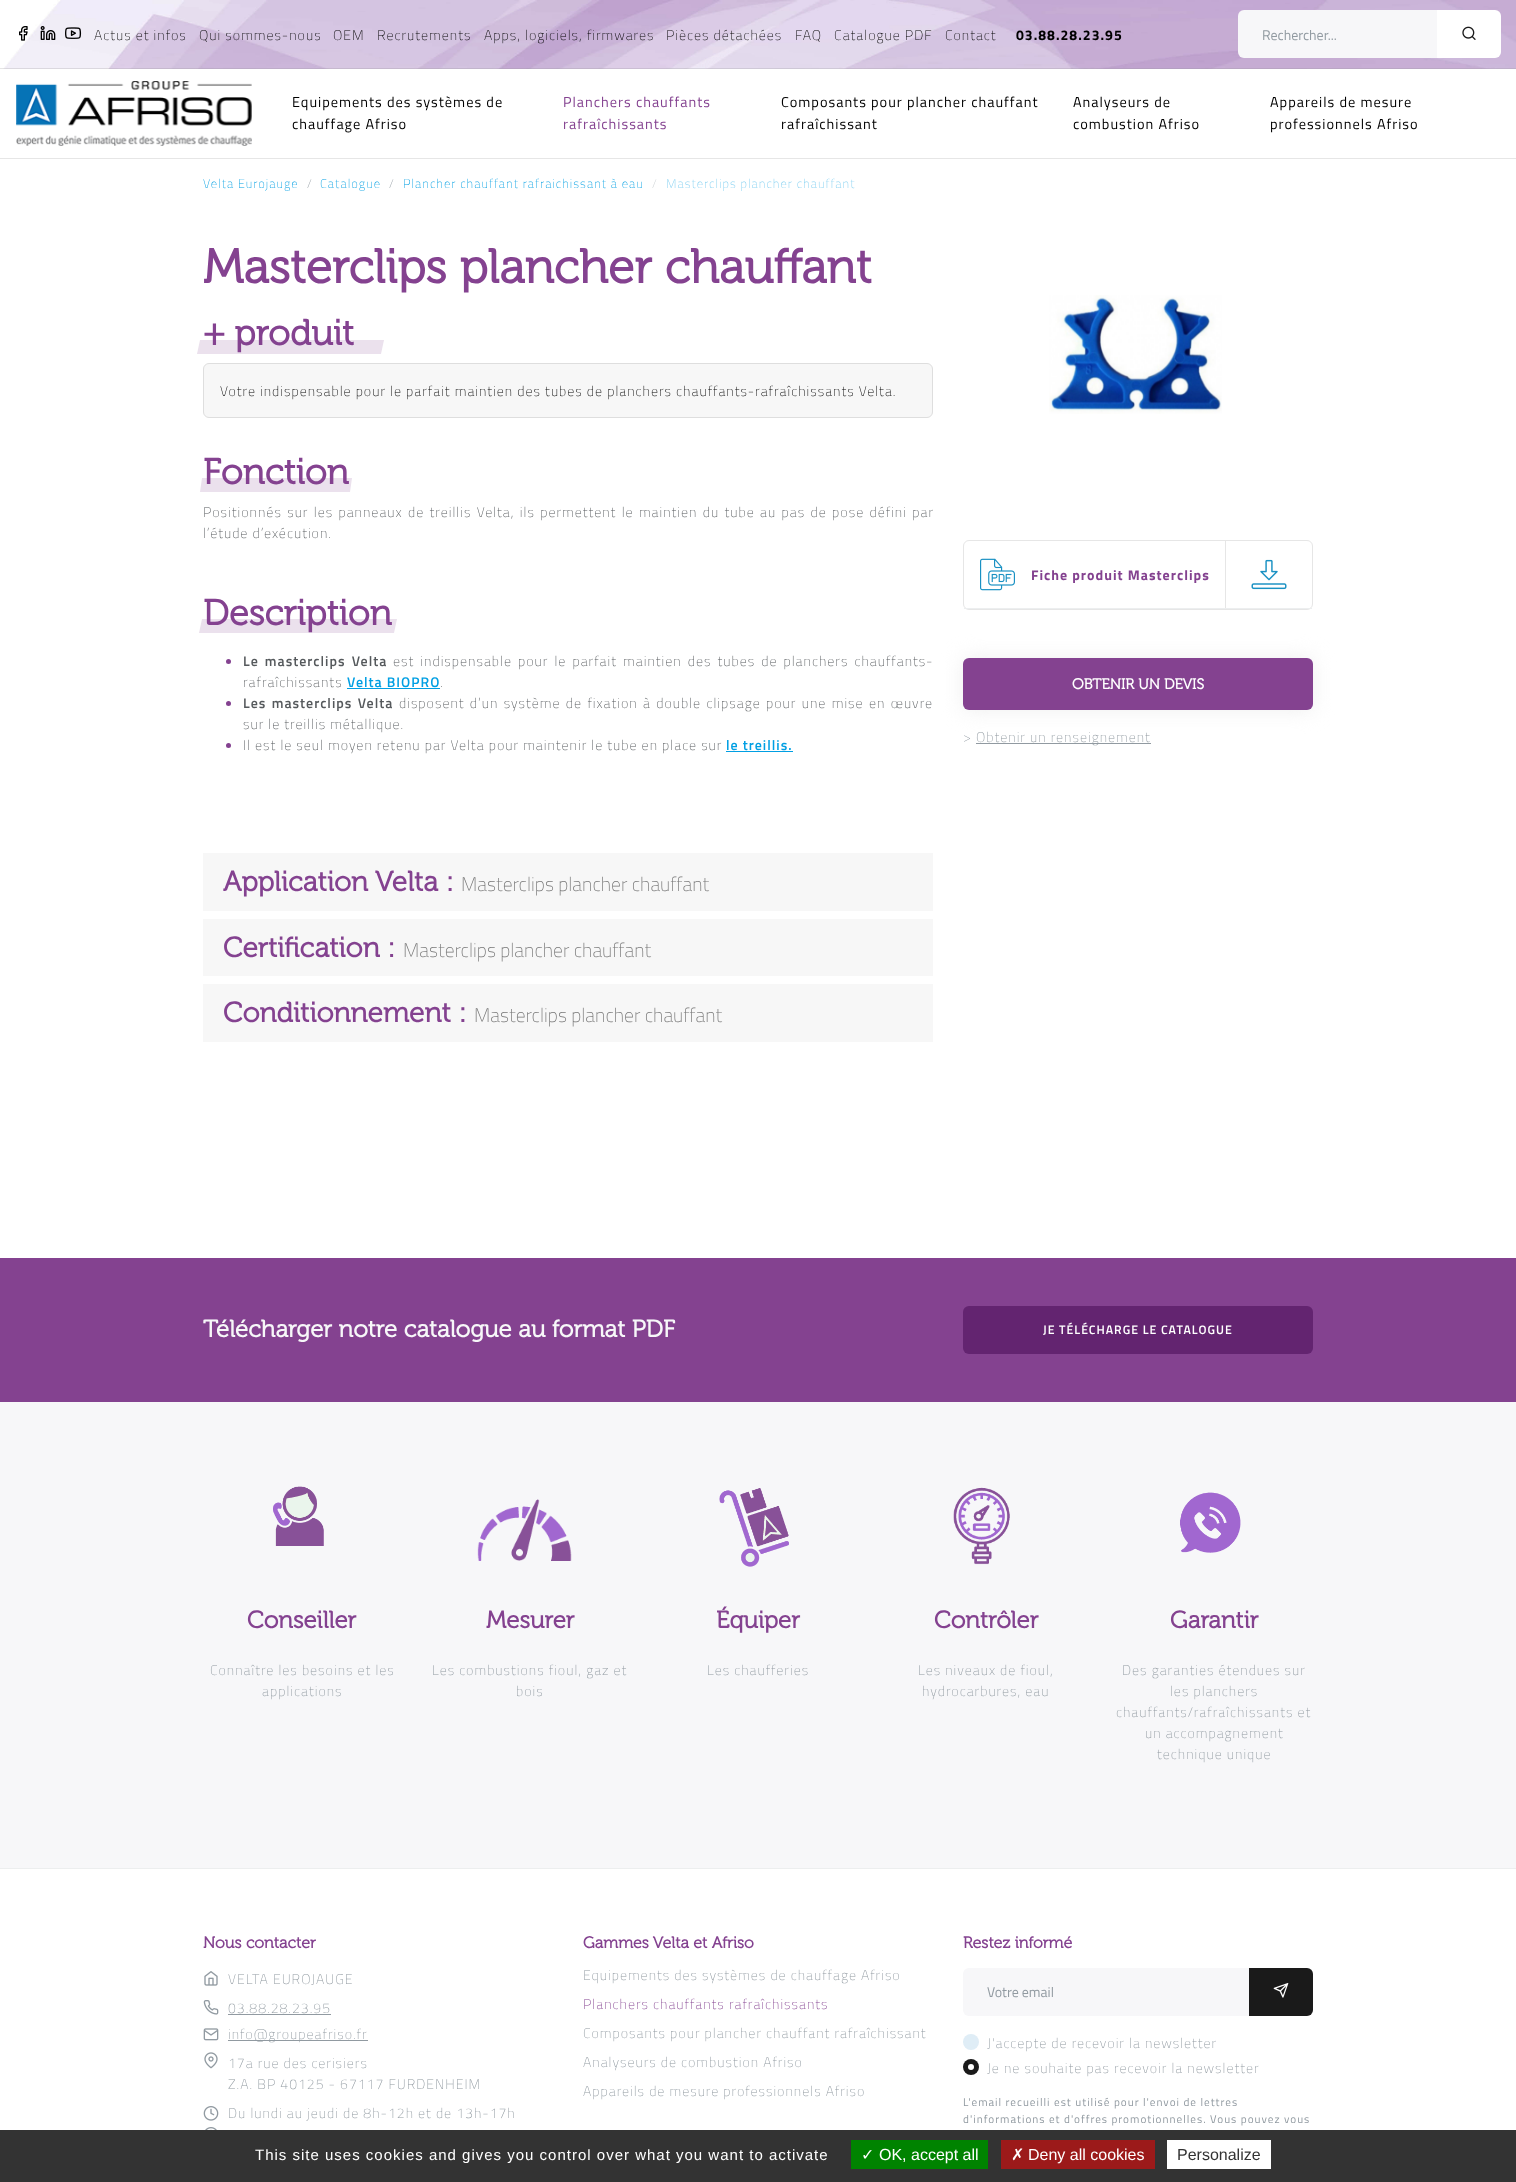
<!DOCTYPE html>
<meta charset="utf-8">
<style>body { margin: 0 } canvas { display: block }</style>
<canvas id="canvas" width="1516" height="2182"></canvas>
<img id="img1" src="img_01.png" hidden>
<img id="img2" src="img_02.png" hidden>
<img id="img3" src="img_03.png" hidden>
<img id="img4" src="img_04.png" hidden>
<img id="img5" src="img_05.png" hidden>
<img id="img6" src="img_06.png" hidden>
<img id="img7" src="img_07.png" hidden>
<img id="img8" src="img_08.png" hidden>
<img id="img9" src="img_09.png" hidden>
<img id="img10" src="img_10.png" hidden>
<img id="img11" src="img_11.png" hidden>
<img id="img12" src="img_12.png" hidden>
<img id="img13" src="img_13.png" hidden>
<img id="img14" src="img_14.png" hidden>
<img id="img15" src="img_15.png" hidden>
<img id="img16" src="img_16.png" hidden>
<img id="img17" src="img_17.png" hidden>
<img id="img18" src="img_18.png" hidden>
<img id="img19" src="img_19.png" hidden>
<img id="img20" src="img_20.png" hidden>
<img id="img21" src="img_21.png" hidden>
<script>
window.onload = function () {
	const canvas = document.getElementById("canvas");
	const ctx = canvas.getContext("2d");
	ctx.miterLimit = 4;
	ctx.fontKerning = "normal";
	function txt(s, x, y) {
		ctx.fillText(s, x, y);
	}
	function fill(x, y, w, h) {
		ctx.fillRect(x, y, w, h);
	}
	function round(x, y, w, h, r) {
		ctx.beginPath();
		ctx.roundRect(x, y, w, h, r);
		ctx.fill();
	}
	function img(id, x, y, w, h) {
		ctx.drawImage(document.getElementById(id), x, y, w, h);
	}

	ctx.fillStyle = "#FFFFFF";
	fill(0, 0, 1516, 2182);
	img("img1", 3, 0, 1513, 69);
	ctx.fillStyle = "rgba(0, 0, 0, 0.1)";
	fill(0, 68, 1516, 1);
	img("img2", 19, 26, 9, 15);
	img("img3", 40, 26, 16, 14);
	img("img4", 65, 27, 17, 12);
	ctx.fillStyle = "#F7F7F9";
	ctx.beginPath();
	ctx.roundRect(1238, 10, 199, 48, [6, 0, 0, 6]);
	ctx.fill();
	ctx.fillStyle = "#FFFFFF";
	ctx.beginPath();
	ctx.roundRect(1437, 10, 64, 48, [0, 6, 6, 0]);
	ctx.fill();
	img("img5", 1462, 26, 14, 14);
	ctx.fillStyle = "#E6E6E6";
	fill(0, 158, 1516, 1);
	img("img6", 16, 81, 236, 65);
	ctx.fillStyle = "#EBE1ED";
	ctx.beginPath();
	ctx.moveTo(200, 340);
	ctx.lineTo(384, 340);
	ctx.lineTo(381, 354);
	ctx.lineTo(197, 354);
	ctx.closePath();
	ctx.fill();
	ctx.fillStyle = "#F7F7F7";
	ctx.beginPath();
	ctx.roundRect(203.5, 363.5, 729, 54, 5.5);
	ctx.fill();
	ctx.strokeStyle = "#DEDEDE";
	ctx.stroke();
	ctx.fillStyle = "#EBE1ED";
	ctx.beginPath();
	ctx.moveTo(202, 478);
	ctx.lineTo(352, 478);
	ctx.lineTo(350, 492);
	ctx.lineTo(200, 492);
	ctx.closePath();
	ctx.fill();
	ctx.beginPath();
	ctx.moveTo(202, 619);
	ctx.lineTo(397, 619);
	ctx.lineTo(394, 633);
	ctx.lineTo(199, 633);
	ctx.closePath();
	ctx.fill();
	ctx.fillStyle = "#844290";
	ctx.beginPath();
	ctx.arc(228.5, 661.5, 2.5, 0, Math.PI * 2);
	ctx.fill();
	ctx.fillStyle = "#009FE3";
	fill(347, 688, 93, 1);
	ctx.fillStyle = "#844290";
	ctx.beginPath();
	ctx.arc(228.5, 703.5, 2.5, 0, Math.PI * 2);
	ctx.fill();
	ctx.beginPath();
	ctx.arc(228.5, 745.5, 2.5, 0, Math.PI * 2);
	ctx.fill();
	ctx.fillStyle = "#009FE3";
	fill(726, 751, 67, 1);
	ctx.fillStyle = "#F7F7F7";
	fill(203, 853, 730, 58);
	fill(203, 919, 730, 57);
	fill(203, 984, 730, 58);
	img("img7", 1049, 295, 173, 119);
	ctx.beginPath();
	ctx.roundRect(963.5, 540.5, 349, 69, 5.5);
	ctx.strokeStyle = "#E6E6E6";
	ctx.stroke();
	ctx.fillStyle = "#ECEEEF";
	fill(964, 608, 348, 1);
	img("img8", 980, 558, 35, 33);
	ctx.fillStyle = "#E6E6E6";
	fill(1225, 541, 1, 67);
	img("img9", 1251, 559, 36, 31);
	ctx.fillStyle = "#EEEEEE";
	ctx.filter = "blur(10px)";
	ctx.beginPath();
	ctx.roundRect(963, 658, 350, 52, 6);
	ctx.fill();
	ctx.filter = "none";
	ctx.fillStyle = "#844290";
	round(963, 658, 350, 52, 6);
	ctx.fillStyle = "#919AA1";
	fill(976, 743, 175, 1);
	ctx.fillStyle = "#844290";
	fill(0, 1258, 1516, 144);
	ctx.fillStyle = "#632470";
	round(963, 1306, 350, 48, 6);
	ctx.fillStyle = "#F7F7F9";
	fill(0, 1402, 1516, 466);
	img("img10", 273, 1486, 51, 60);
	img("img11", 477, 1499, 95, 62);
	img("img12", 719, 1488, 70, 79);
	img("img13", 953, 1487, 57, 78);
	img("img14", 1180, 1492, 61, 61);
	ctx.fillStyle = "#ECEEEF";
	fill(0, 1868, 1516, 1);
	img("img15", 204, 1971, 14, 15);
	img("img16", 203, 2000, 16, 15);
	ctx.fillStyle = "#919AA1";
	fill(228, 2014, 103, 1);
	img("img17", 203, 2028, 16, 13);
	fill(228, 2040, 140, 1);
	img("img18", 204, 2052, 14, 17);
	img("img19", 203, 2106, 16, 15);
	img("img20", 205, 2127, 12, 3);
	ctx.fillStyle = "#F7F7F9";
	ctx.beginPath();
	ctx.roundRect(963, 1968, 286, 48, [6, 0, 0, 6]);
	ctx.fill();
	ctx.fillStyle = "#1A1A1A";
	ctx.beginPath();
	ctx.roundRect(1249, 1968, 64, 48, [0, 6, 6, 0]);
	ctx.fill();
	img("img21", 1273, 1983, 16, 15);
	ctx.fillStyle = "#DFEDF6";
	ctx.beginPath();
	ctx.arc(971, 2042, 8, 0, Math.PI * 2);
	ctx.fill();
	ctx.fillStyle = "#1A1A1A";
	ctx.beginPath();
	ctx.arc(971, 2067, 8, 0, Math.PI * 2);
	ctx.fill();
	ctx.fillStyle = "#FFFFFF";
	ctx.beginPath();
	ctx.arc(971, 2067, 3, 0, Math.PI * 2);
	ctx.fill();
	ctx.fillStyle = "#333333";
	fill(0, 2130, 1516, 52);
	ctx.fillStyle = "#008300";
	fill(851, 2140, 137, 29);
	ctx.fillStyle = "#9C1A1A";
	fill(1001, 2140, 154, 29);
	ctx.fillStyle = "#FFFFFF";
	fill(1167, 2140, 104, 29);
	ctx.letterSpacing = "1px";
	ctx.font = "300 14px Titillium Web";
	ctx.fillStyle = "#000000";
	txt("Actus et infos", 94, 40);
	txt("Qui sommes-nous", 199, 40);
	txt("OEM", 333, 40);
	txt("Recrutements", 377, 40);
	txt("Apps, logiciels, firmwares", 484, 40);
	txt("Pièces détachées", 666, 40);
	txt("FAQ", 795, 40);
	txt("Catalogue PDF", 834, 40);
	txt("Contact", 945, 40);
	ctx.font = "bold 14px Titillium Web";
	txt("03.88.28.23.95", 1016, 40);
	ctx.letterSpacing = "0px";
	ctx.font = "14px Titillium Web";
	ctx.fillStyle = "#919AA1";
	txt("Rechercher...", 1262, 40);
	ctx.letterSpacing = "1px";
	ctx.font = "14.4px Titillium Web";
	ctx.fillStyle = "#000000";
	txt("Equipements des systèmes de", 292, 107);
	txt("chauffage Afriso", 292, 129);
	ctx.fillStyle = "#844290";
	txt("Planchers chauffants", 563, 107);
	txt("rafraîchissants", 563, 129);
	ctx.fillStyle = "#000000";
	txt("Composants pour plancher chauffant", 781, 107);
	txt("rafraîchissant", 781, 129);
	txt("Analyseurs de", 1073, 107);
	txt("combustion Afriso", 1073, 129);
	txt("Appareils de mesure", 1270, 107);
	txt("professionnels Afriso", 1270, 129);
	ctx.font = "300 12.6px Titillium Web";
	ctx.fillStyle = "#009FE3";
	txt("Velta Eurojauge", 203, 188);
	ctx.fillStyle = "#919AA1";
	txt("/", 307, 188);
	ctx.fillStyle = "#009FE3";
	txt("Catalogue", 320, 188);
	ctx.fillStyle = "#919AA1";
	txt("/", 389, 188);
	ctx.fillStyle = "#009FE3";
	txt("Plancher chauffant rafraichissant à eau", 403, 188);
	ctx.fillStyle = "#C8CDD0";
	txt("/", 652, 188);
	ctx.fillStyle = "#80CFF1";
	txt("Masterclips plancher chauffant", 666, 188);
	ctx.letterSpacing = "0px";
	ctx.font = "bold 48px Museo";
	ctx.fillStyle = "#844290";
	txt("Masterclips plancher chauffant", 203, 283);
	ctx.font = "bold 36px Museo";
	txt("+ produit", 203, 345);
	ctx.letterSpacing = "1px";
	ctx.font = "300 14px Titillium Web";
	ctx.fillStyle = "#000000";
	txt("Votre indispensable pour le parfait maintien des tubes de planchers chauffants-rafraîchissants Velta.", 220, 396);
	ctx.letterSpacing = "0px";
	ctx.font = "bold 36px Museo";
	ctx.fillStyle = "#844290";
	txt("Fonction", 203, 484);
	ctx.letterSpacing = "1px";
	ctx.wordSpacing = "1.25px";
	ctx.font = "300 14px Titillium Web";
	ctx.fillStyle = "#55595C";
	txt("Positionnés sur les panneaux de treillis Velta, ils permettent le maintien du tube au pas de pose défini par", 203, 517);
	ctx.wordSpacing = "0px";
	txt("l’étude d’exécution.", 203, 538);
	ctx.letterSpacing = "0px";
	ctx.font = "bold 36px Museo";
	ctx.fillStyle = "#844290";
	txt("Description", 203, 625);
	ctx.letterSpacing = "1px";
	ctx.wordSpacing = "2px";
	ctx.font = "600 14px Titillium Web";
	ctx.fillStyle = "#55595C";
	txt("Le masterclips Velta", 243, 666);
	ctx.font = "300 14px Titillium Web";
	txt("est indispensable pour le parfait maintien des tubes de planchers chauffants-", 393, 666);
	ctx.wordSpacing = "0px";
	txt("rafraîchissants", 243, 687);
	ctx.font = "600 14px Titillium Web";
	ctx.fillStyle = "#009FE3";
	txt("Velta BIOPRO", 347, 687);
	ctx.font = "300 14px Titillium Web";
	ctx.fillStyle = "#55595C";
	txt(".", 440, 687);
	ctx.wordSpacing = "1.25px";
	ctx.font = "600 14px Titillium Web";
	txt("Les masterclips Velta", 243, 708);
	ctx.font = "300 14px Titillium Web";
	txt("disposent d’un système de fixation à double clipsage pour une mise en œuvre", 399, 708);
	ctx.wordSpacing = "0px";
	txt("sur le treillis métallique.", 243, 729);
	txt("Il est le seul moyen retenu par Velta pour maintenir le tube en place sur", 243, 750);
	ctx.font = "600 14px Titillium Web";
	ctx.fillStyle = "#009FE3";
	txt("le treillis.", 726, 750);
	ctx.letterSpacing = "0px";
	ctx.font = "bold 28px Museo";
	ctx.fillStyle = "#844290";
	txt("Application Velta :", 223, 891);
	ctx.font = "300 19.6px Titillium Web";
	ctx.fillStyle = "#767676";
	txt("Masterclips plancher chauffant", 461, 891);
	ctx.font = "bold 28px Museo";
	ctx.fillStyle = "#844290";
	txt("Certification :", 223, 957);
	ctx.font = "300 19.6px Titillium Web";
	ctx.fillStyle = "#767676";
	txt("Masterclips plancher chauffant", 403, 957);
	ctx.font = "bold 28px Museo";
	ctx.fillStyle = "#844290";
	txt("Conditionnement :", 223, 1022);
	ctx.font = "300 19.6px Titillium Web";
	ctx.fillStyle = "#767676";
	txt("Masterclips plancher chauffant", 474, 1022);
	ctx.letterSpacing = "1px";
	ctx.font = "bold 14px Titillium Web";
	ctx.fillStyle = "#844290";
	txt("Fiche produit Masterclips", 1031, 580);
	ctx.letterSpacing = "0px";
	ctx.font = "bold 14.75px Museo";
	ctx.fillStyle = "#FFFFFF";
	txt("OBTENIR UN DEVIS", 1072, 689);
	ctx.letterSpacing = "1px";
	ctx.font = "300 14px Titillium Web";
	ctx.fillStyle = "#919AA1";
	txt(">", 963, 742);
	txt("Obtenir un renseignement", 976, 742);
	ctx.letterSpacing = "0px";
	ctx.font = "bold 24px Museo";
	ctx.fillStyle = "#F7F7F9";
	txt("Télécharger notre catalogue au format PDF", 203, 1337);
	ctx.letterSpacing = "1px";
	ctx.font = "600 12.25px Titillium Web";
	ctx.fillStyle = "#FFFFFF";
	txt("JE TÉLÉCHARGE LE CATALOGUE", 1043, 1334);
	ctx.letterSpacing = "0px";
	ctx.font = "bold 24px Museo";
	ctx.fillStyle = "#844290";
	txt("Conseiller", 247, 1628);
	ctx.letterSpacing = "1px";
	ctx.font = "300 14px Titillium Web";
	ctx.fillStyle = "#919AA1";
	txt("Connaître les besoins et les", 210, 1675);
	txt("applications", 262, 1696);
	ctx.letterSpacing = "0px";
	ctx.font = "bold 24px Museo";
	ctx.fillStyle = "#844290";
	txt("Mesurer", 486, 1628);
	ctx.letterSpacing = "1px";
	ctx.font = "300 14px Titillium Web";
	ctx.fillStyle = "#919AA1";
	txt("Les combustions fioul, gaz et", 432, 1675);
	txt("bois", 516, 1696);
	ctx.letterSpacing = "0px";
	ctx.font = "bold 24px Museo";
	ctx.fillStyle = "#844290";
	txt("Équiper", 716, 1628);
	ctx.letterSpacing = "1px";
	ctx.font = "300 14px Titillium Web";
	ctx.fillStyle = "#919AA1";
	txt("Les chaufferies", 707, 1675);
	ctx.letterSpacing = "0px";
	ctx.font = "bold 24px Museo";
	ctx.fillStyle = "#844290";
	txt("Contrôler", 934, 1628);
	ctx.letterSpacing = "1px";
	ctx.font = "300 14px Titillium Web";
	ctx.fillStyle = "#919AA1";
	txt("Les niveaux de fioul,", 918, 1675);
	txt("hydrocarbures, eau", 922, 1696);
	ctx.letterSpacing = "0px";
	ctx.font = "bold 24px Museo";
	ctx.fillStyle = "#844290";
	txt("Garantir", 1170, 1628);
	ctx.letterSpacing = "1px";
	ctx.font = "300 14px Titillium Web";
	ctx.fillStyle = "#919AA1";
	txt("Des garanties étendues sur", 1122, 1675);
	txt("les planchers", 1170, 1696);
	txt("chauffants/rafraîchissants et", 1116, 1717);
	txt("un accompagnement", 1145, 1738);
	txt("technique unique", 1157, 1759);
	ctx.letterSpacing = "0px";
	ctx.font = "bold 16px Museo";
	ctx.fillStyle = "#844290";
	txt("Nous contacter", 203, 1948);
	ctx.letterSpacing = "1px";
	ctx.font = "300 14px Titillium Web";
	ctx.fillStyle = "#919AA1";
	txt("VELTA EUROJAUGE", 228, 1984);
	txt("03.88.28.23.95", 228, 2013);
	txt("info@groupeafriso.fr", 228, 2039);
	txt("17a rue des cerisiers", 228, 2068);
	txt("Z.A. BP 40125 - 67117 FURDENHEIM", 228, 2089);
	txt("Du lundi au jeudi de 8h-12h et de 13h-17h", 228, 2118);
	ctx.letterSpacing = "0px";
	ctx.font = "bold 16px Museo";
	ctx.fillStyle = "#844290";
	txt("Gammes Velta et Afriso", 583, 1948);
	ctx.letterSpacing = "1px";
	ctx.font = "300 14px Titillium Web";
	ctx.fillStyle = "#919AA1";
	txt("Equipements des systèmes de chauffage Afriso", 583, 1980);
	ctx.fillStyle = "#844290";
	txt("Planchers chauffants rafraîchissants", 583, 2009);
	ctx.fillStyle = "#919AA1";
	txt("Composants pour plancher chauffant rafraîchissant", 583, 2038);
	txt("Analyseurs de combustion Afriso", 583, 2067);
	txt("Appareils de mesure professionnels Afriso", 583, 2096);
	ctx.letterSpacing = "0px";
	ctx.font = "bold 16px Museo";
	ctx.fillStyle = "#844290";
	txt("Restez informé", 963, 1948);
	ctx.font = "14px Titillium Web";
	ctx.fillStyle = "#919AA1";
	txt("Votre email", 987, 1997);
	ctx.letterSpacing = "1px";
	ctx.font = "300 14px Titillium Web";
	txt("J'accepte de recevoir la newsletter", 987, 2048);
	txt("Je ne souhaite pas recevoir la newsletter", 987, 2073);
	ctx.font = "11.2px Titillium Web";
	txt("L'email recueilli est utilisé pour l'envoi de lettres", 963, 2106);
	txt("d'informations et d'offres promotionnelles. Vous pouvez vous", 963, 2123);
	ctx.font = "15px Liberation Sans";
	ctx.fillStyle = "#FFFFFF";
	txt("This site uses cookies and gives you control over what you want to activate", 255, 2160);
	ctx.letterSpacing = "0px";
	ctx.font = "16px DejaVu Sans";
	txt("✓", 861, 2160);
	ctx.font = "16px Liberation Sans";
	txt("OK, accept all", 879, 2160);
	ctx.font = "16px DejaVu Sans";
	txt("✗", 1011, 2160);
	ctx.font = "16px Liberation Sans";
	txt("Deny all cookies", 1028, 2160);
	ctx.fillStyle = "#333333";
	txt("Personalize", 1177, 2160);
};
</script>
